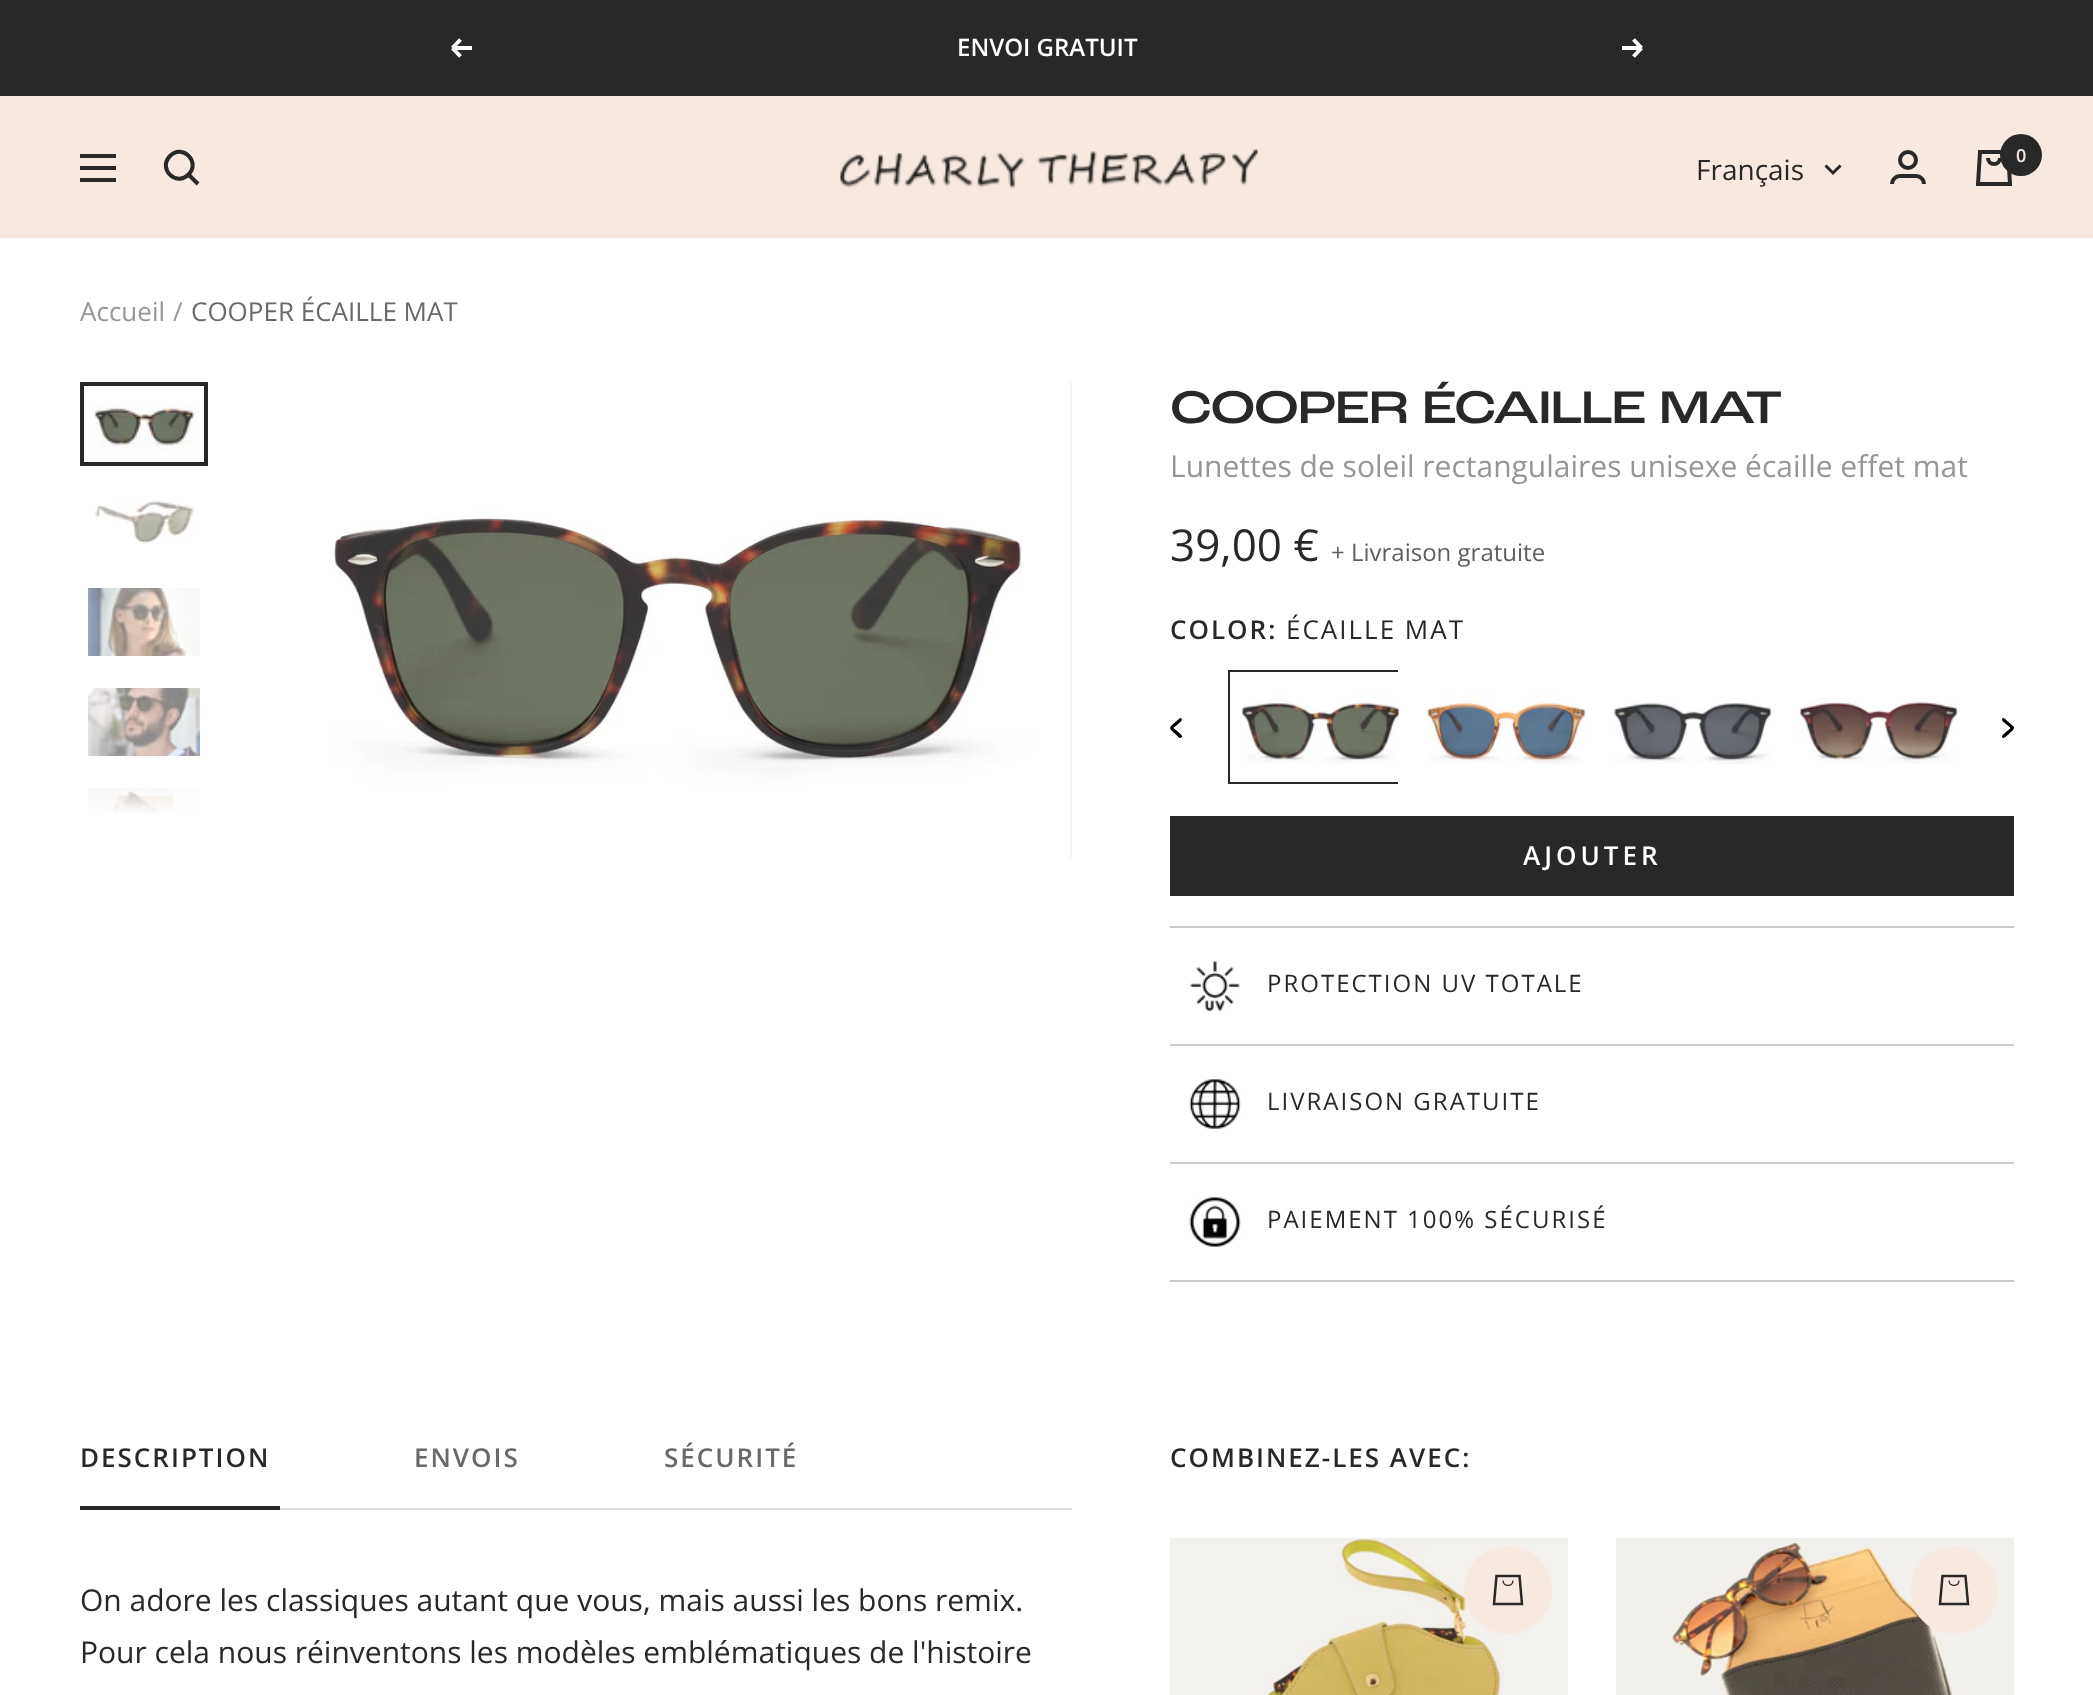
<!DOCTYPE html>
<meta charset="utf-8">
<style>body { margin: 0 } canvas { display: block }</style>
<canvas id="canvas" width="2093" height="1695"></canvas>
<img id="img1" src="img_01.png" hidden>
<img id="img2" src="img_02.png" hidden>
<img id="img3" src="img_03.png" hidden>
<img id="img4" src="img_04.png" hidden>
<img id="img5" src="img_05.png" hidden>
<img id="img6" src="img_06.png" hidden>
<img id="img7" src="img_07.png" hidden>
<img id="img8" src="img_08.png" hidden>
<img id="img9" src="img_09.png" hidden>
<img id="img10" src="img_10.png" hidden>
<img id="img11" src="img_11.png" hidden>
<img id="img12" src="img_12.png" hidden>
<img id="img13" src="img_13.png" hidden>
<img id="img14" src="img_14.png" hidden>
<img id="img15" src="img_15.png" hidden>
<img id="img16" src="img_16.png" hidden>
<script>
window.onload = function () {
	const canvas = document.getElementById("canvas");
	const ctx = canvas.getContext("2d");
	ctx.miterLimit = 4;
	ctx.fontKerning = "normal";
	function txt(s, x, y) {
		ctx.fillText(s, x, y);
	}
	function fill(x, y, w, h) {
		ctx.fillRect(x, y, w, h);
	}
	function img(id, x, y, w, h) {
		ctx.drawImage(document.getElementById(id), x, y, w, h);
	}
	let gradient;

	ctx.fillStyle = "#FFFFFF";
	fill(0, 0, 2093, 1695);
	ctx.fillStyle = "#282828";
	fill(0, 0, 2093, 96);
	ctx.beginPath();
	ctx.moveTo(472, 48);
	ctx.lineTo(452.5, 48);
	ctx.moveTo(452.5, 48);
	ctx.lineTo(460.5, 56.5);
	ctx.moveTo(452.5, 48);
	ctx.lineTo(460.5, 39.5);
	ctx.strokeStyle = "#FFFFFF";
	ctx.lineWidth = 4;
	ctx.stroke();
	ctx.beginPath();
	ctx.moveTo(1622, 48);
	ctx.lineTo(1641.5, 48);
	ctx.moveTo(1641.5, 48);
	ctx.lineTo(1633.5, 56.5);
	ctx.moveTo(1641.5, 48);
	ctx.lineTo(1633.5, 39.5);
	ctx.stroke();
	ctx.fillStyle = "#F7E9E0";
	fill(0, 96, 2093, 142);
	ctx.beginPath();
	ctx.moveTo(80, 156);
	ctx.lineTo(116, 156);
	ctx.moveTo(80, 180);
	ctx.lineTo(116, 180);
	ctx.closePath();
	ctx.moveTo(80, 168);
	ctx.lineTo(116, 168);
	ctx.closePath();
	ctx.strokeStyle = "#282828";
	ctx.stroke();
	ctx.beginPath();
	ctx.moveTo(188.5, 174.5);
	ctx.bezierCurveTo(201, 162, 182.5, 143.5, 170, 156);
	ctx.bezierCurveTo(157.5, 168.5, 176, 187, 188.5, 174.5);
	ctx.closePath();
	ctx.moveTo(188.5, 174.5);
	ctx.lineTo(198, 184);
	ctx.stroke();
	img("img1", 840, 149, 419, 40);
	ctx.beginPath();
	ctx.arc(1908, 160, 8, 0, Math.PI * 2);
	ctx.stroke();
	ctx.beginPath();
	ctx.moveTo(1892, 184);
	ctx.bezierCurveTo(1892, 179.5, 1895.5, 176, 1900, 176);
	ctx.lineTo(1916, 176);
	ctx.bezierCurveTo(1920.5, 176, 1924, 179.5, 1924, 184);
	ctx.stroke();
	ctx.beginPath();
	ctx.moveTo(1980, 152);
	ctx.lineTo(2008, 152);
	ctx.lineTo(2010, 184);
	ctx.lineTo(1978, 184);
	ctx.closePath();
	ctx.moveTo(1988, 158);
	ctx.bezierCurveTo(1988, 166, 2000, 166, 2000, 158);
	ctx.stroke();
	ctx.fillStyle = "#282828";
	ctx.beginPath();
	ctx.arc(2021, 155, 21, 0, Math.PI * 2);
	ctx.fill();
	ctx.beginPath();
	ctx.moveTo(1825.5, 165.5);
	ctx.lineTo(1833, 173);
	ctx.lineTo(1840.5, 165.5);
	ctx.lineWidth = 3;
	ctx.stroke();
	img("img2", 95, 405, 103, 45);
	ctx.lineWidth = 4;
	ctx.strokeRect(82, 384, 124, 80);
	img("img3", 95, 500, 100, 44);
	img("img4", 88, 588, 112, 68);
	img("img5", 88, 688, 112, 68);
	img("img6", 88, 788, 112, 26);
	gradient = ctx.createLinearGradient(180, 814, 180, 766);
	gradient.addColorStop(0, "#FFFFFF");
	gradient.addColorStop(1, "rgba(255, 255, 255, 0)");
	ctx.fillStyle = gradient;
	fill(88, 788, 112, 26);
	ctx.fillStyle = "#F5F5F5";
	fill(1070, 382, 2, 476);
	img("img7", 280, 382, 790, 476);
	ctx.fillStyle = "#000000";
	ctx.beginPath();
	ctx.moveTo(1179.5, 718.5);
	ctx.lineTo(1172, 725);
	ctx.bezierCurveTo(1169.5, 728, 1169.5, 728, 1172, 731);
	ctx.lineTo(1176.5, 735);
	ctx.bezierCurveTo(1177.5, 736, 1179, 738, 1180.5, 738);
	ctx.lineTo(1182, 737);
	ctx.bezierCurveTo(1183, 735.5, 1177.5, 731.5, 1176.5, 730.5);
	ctx.bezierCurveTo(1172.5, 727, 1173, 728.5, 1177.5, 724.5);
	ctx.bezierCurveTo(1179, 723, 1183, 720.5, 1181.5, 718.5);
	ctx.lineTo(1180.5, 718);
	ctx.closePath();
	ctx.fill();
	ctx.lineWidth = 2;
	ctx.strokeRect(1229, 671, 168, 112);
	img("img8", 1241, 672, 158, 110);
	img("img9", 1427, 695, 159, 70);
	img("img10", 1614, 702, 157, 62);
	img("img11", 1799, 698, 160, 66);
	ctx.beginPath();
	ctx.moveTo(2004.5, 718.5);
	ctx.bezierCurveTo(2003.5, 717.5, 2002.5, 718, 2002, 719);
	ctx.bezierCurveTo(2001, 721, 2009, 726, 2010.5, 728);
	ctx.bezierCurveTo(2011, 729, 2000, 735, 2002.5, 737.5);
	ctx.bezierCurveTo(2003.5, 739, 2005, 737, 2006, 736.5);
	ctx.lineTo(2012, 731);
	ctx.bezierCurveTo(2013, 730, 2015, 728, 2013.5, 726.5);
	ctx.closePath();
	ctx.fill();
	ctx.fillStyle = "#282828";
	ctx.beginPath();
	ctx.rect(1171, 817, 842, 78);
	ctx.fill();
	ctx.stroke();
	ctx.fillStyle = "#C9C9C9";
	fill(1170, 926, 844, 2);
	img("img12", 1190, 961, 50, 50);
	fill(1170, 1044, 844, 2);
	img("img13", 1189, 1079, 52, 50);
	fill(1170, 1162, 844, 2);
	fill(1170, 1280, 844, 2);
	img("img14", 1189, 1197, 52, 50);
	ctx.fillStyle = "#DFDFDF";
	fill(280, 1508, 792, 2);
	ctx.fillStyle = "#282828";
	fill(80, 1506, 200, 4);
	img("img15", 1170, 1538, 398, 157);
	ctx.fillStyle = "#F7E9E0";
	ctx.beginPath();
	ctx.arc(1508, 1590, 44, 0, Math.PI * 2);
	ctx.fill();
	ctx.beginPath();
	ctx.moveTo(1513, 1580.5);
	ctx.bezierCurveTo(1513, 1587, 1503, 1587, 1503, 1580.5);
	ctx.lineWidth = 1.3;
	ctx.stroke();
	ctx.beginPath();
	ctx.moveTo(1519.5, 1576);
	ctx.lineTo(1522, 1604);
	ctx.lineTo(1494, 1604);
	ctx.lineTo(1496.5, 1576);
	ctx.closePath();
	ctx.lineWidth = 2.5;
	ctx.stroke();
	img("img16", 1616, 1538, 398, 157);
	ctx.beginPath();
	ctx.arc(1954, 1590, 44, 0, Math.PI * 2);
	ctx.fill();
	ctx.beginPath();
	ctx.moveTo(1959, 1580.5);
	ctx.bezierCurveTo(1959, 1587, 1949, 1587, 1949, 1580.5);
	ctx.lineWidth = 1.3;
	ctx.stroke();
	ctx.beginPath();
	ctx.moveTo(1965.5, 1576);
	ctx.lineTo(1968, 1604);
	ctx.lineTo(1940, 1604);
	ctx.lineTo(1942.5, 1576);
	ctx.closePath();
	ctx.lineWidth = 2.5;
	ctx.stroke();
	ctx.font = "600 24px Open Sans";
	ctx.fillStyle = "#FFFFFF";
	txt("ENVOI GRATUIT", 957, 56);
	ctx.font = "600 18px Open Sans";
	ctx.fillStyle = "#F7E9E0";
	txt("0", 2016, 162);
	ctx.font = "28px Open Sans";
	ctx.fillStyle = "#282828";
	txt("Français", 1696, 180);
	ctx.font = "26px Open Sans";
	ctx.fillStyle = "#969696";
	txt("Accueil", 80, 321);
	txt("/", 173, 321);
	ctx.fillStyle = "#696969";
	txt("COOPER ÉCAILLE MAT", 191, 321);
	ctx.letterSpacing = "-1.25px";
	ctx.font = "500 48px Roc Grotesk";
	ctx.fillStyle = "#282828";
	txt("COOPER ÉCAILLE MAT", 1170, 423);
	ctx.letterSpacing = "0px";
	ctx.font = "30px Open Sans";
	ctx.fillStyle = "#969696";
	txt("Lunettes de soleil rectangulaires unisexe écaille effet mat", 1170, 477);
	ctx.font = "44px Open Sans";
	ctx.fillStyle = "#282828";
	txt("39,00 €", 1170, 561);
	ctx.font = "24px Open Sans";
	ctx.fillStyle = "#5E5E5E";
	txt("+ Livraison gratuite", 1331, 561);
	ctx.letterSpacing = "2px";
	ctx.font = "600 26px Open Sans";
	ctx.fillStyle = "#282828";
	txt("COLOR:", 1170, 639);
	ctx.font = "26px Open Sans";
	txt("ÉCAILLE MAT", 1286, 639);
	ctx.letterSpacing = "4px";
	ctx.font = "600 26px Open Sans";
	ctx.fillStyle = "#FFFFFF";
	txt("AJOUTER", 1523, 865);
	ctx.letterSpacing = "2px";
	ctx.font = "24px Open Sans";
	ctx.fillStyle = "#282828";
	txt("PROTECTION UV TOTALE", 1267, 992);
	txt("LIVRAISON GRATUITE", 1267, 1110);
	txt("PAIEMENT 100% SÉCURISÉ", 1267, 1228);
	ctx.font = "600 26px Open Sans";
	txt("DESCRIPTION", 80, 1467);
	ctx.fillStyle = "#696969";
	txt("ENVOIS", 414, 1467);
	txt("SÉCURITÉ", 664, 1467);
	ctx.letterSpacing = "0px";
	ctx.font = "30px Open Sans";
	ctx.fillStyle = "#282828";
	txt("On adore les classiques autant que vous, mais aussi les bons remix.", 80, 1611);
	txt("Pour cela nous réinventons les modèles emblématiques de l'histoire", 80, 1663);
	ctx.letterSpacing = "2px";
	ctx.font = "600 26px Open Sans";
	txt("COMBINEZ-LES AVEC:", 1170, 1467);
};
</script>
